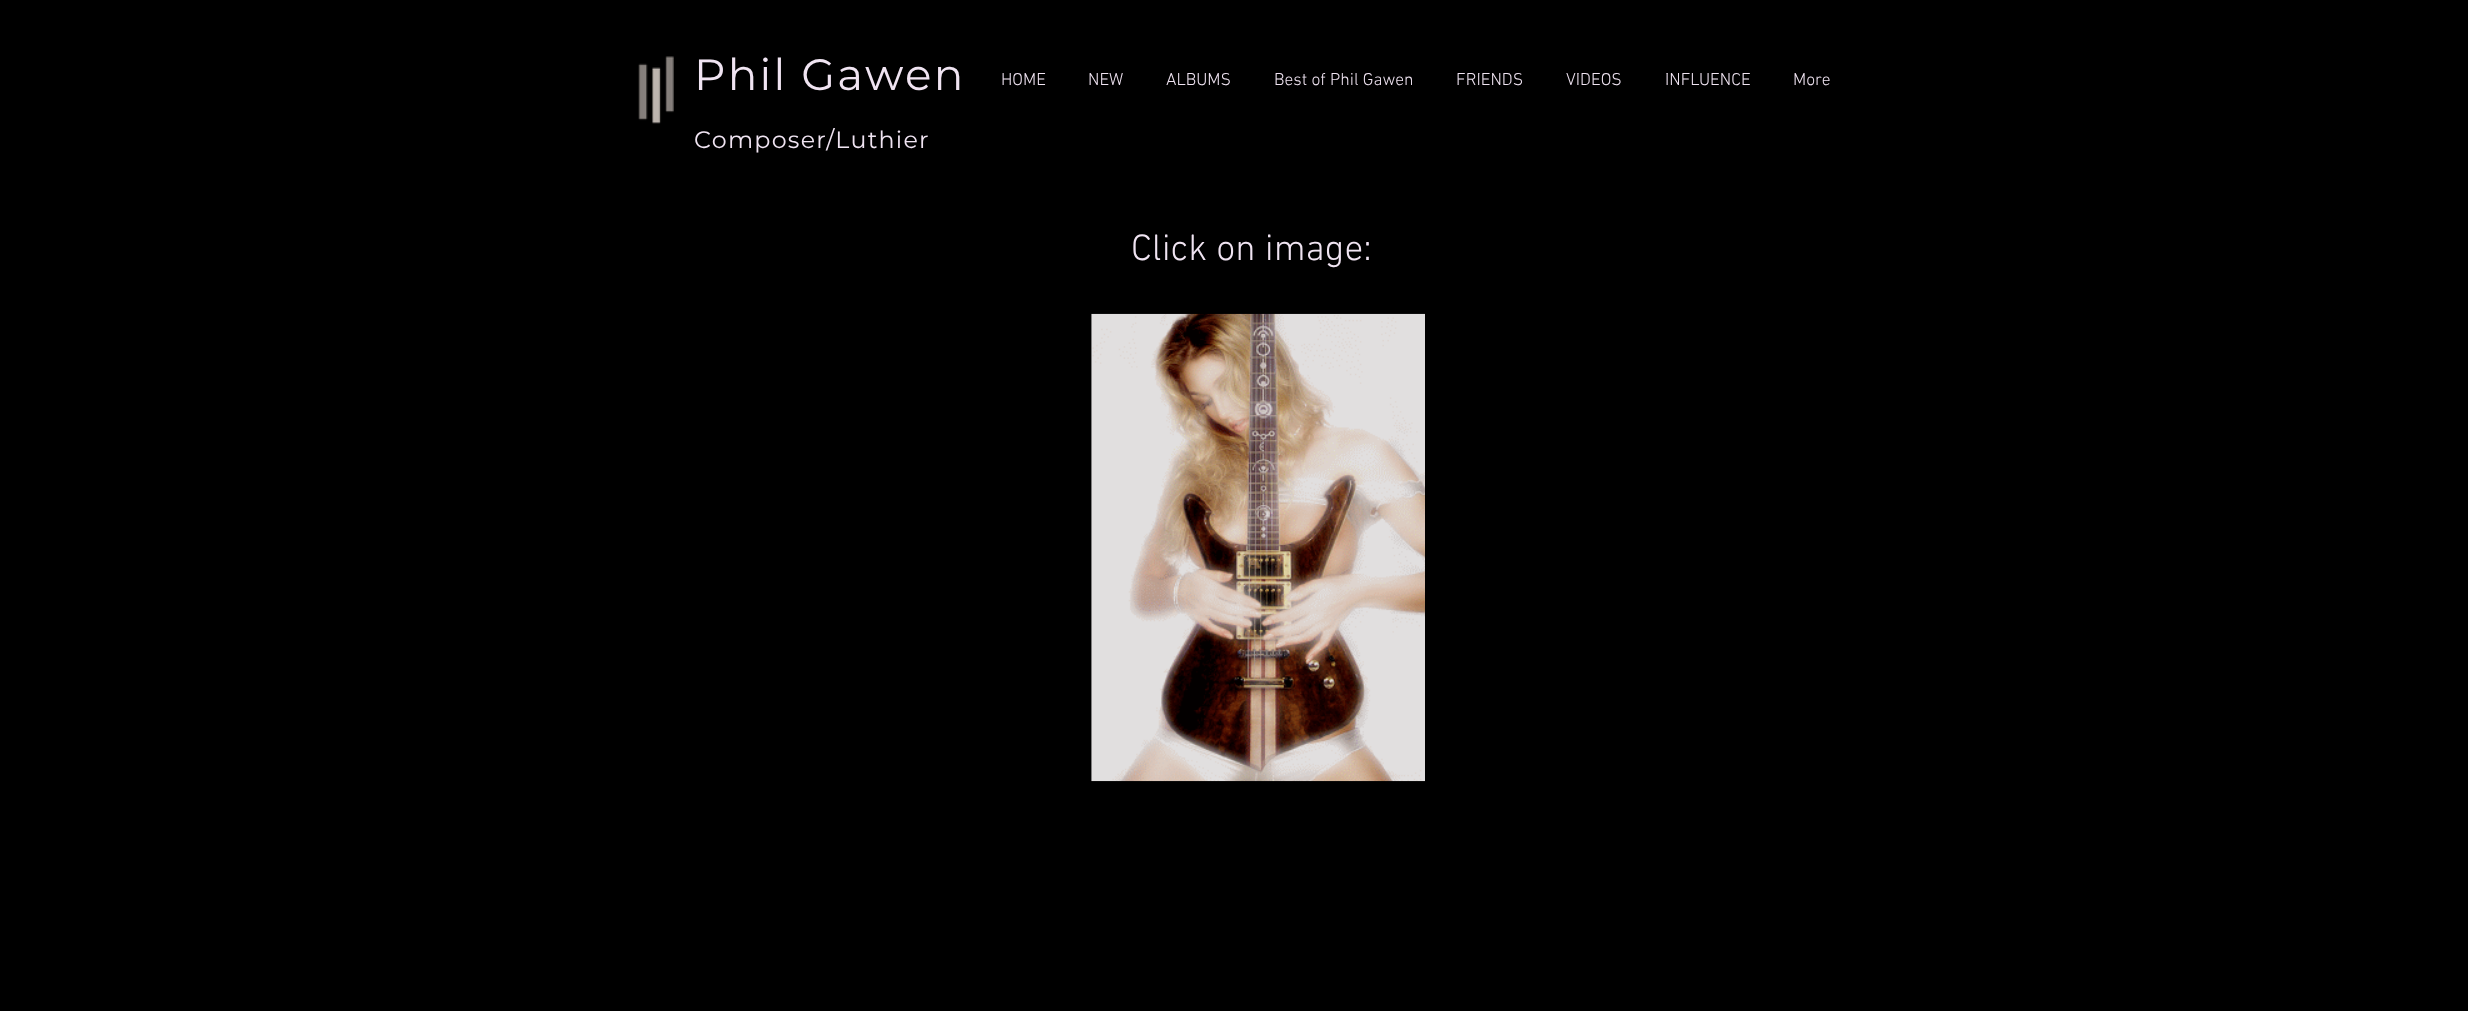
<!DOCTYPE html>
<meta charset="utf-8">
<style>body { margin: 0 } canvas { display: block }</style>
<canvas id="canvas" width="2468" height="1011"></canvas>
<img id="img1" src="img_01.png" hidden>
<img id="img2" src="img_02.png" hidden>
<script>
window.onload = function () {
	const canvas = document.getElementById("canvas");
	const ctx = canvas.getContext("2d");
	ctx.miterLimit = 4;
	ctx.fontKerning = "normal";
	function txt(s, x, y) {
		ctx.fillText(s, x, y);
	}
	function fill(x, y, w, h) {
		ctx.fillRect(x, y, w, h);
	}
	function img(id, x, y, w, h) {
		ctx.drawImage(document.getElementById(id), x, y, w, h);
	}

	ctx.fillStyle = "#000000";
	fill(0, 0, 2468, 1011);
	img("img1", 638, 56, 36, 68);
	img("img2", 1091, 313, 334, 469);
	ctx.letterSpacing = "2.25px";
	ctx.font = "43.75px Montserrat";
	ctx.fillStyle = "#F0E4F2";
	txt("Phil Gawen", 694, 90);
	ctx.letterSpacing = "1.25px";
	ctx.font = "23.75px Montserrat";
	txt("Composer/Luthier", 694, 148);
	ctx.letterSpacing = "0px";
	ctx.font = "300 17.5px 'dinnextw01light'";
	txt("HOME", 1001, 85);
	txt("NEW", 1088, 85);
	txt("ALBUMS", 1166, 85);
	txt("Best of Phil Gawen", 1274, 85);
	txt("FRIENDS", 1456, 85);
	txt("VIDEOS", 1566, 85);
	txt("INFLUENCE", 1665, 85);
	txt("More", 1793, 85);
	ctx.font = "300 37.5px 'dinnextw01light'";
	txt("Click on image:", 1131, 260);
};
</script>
